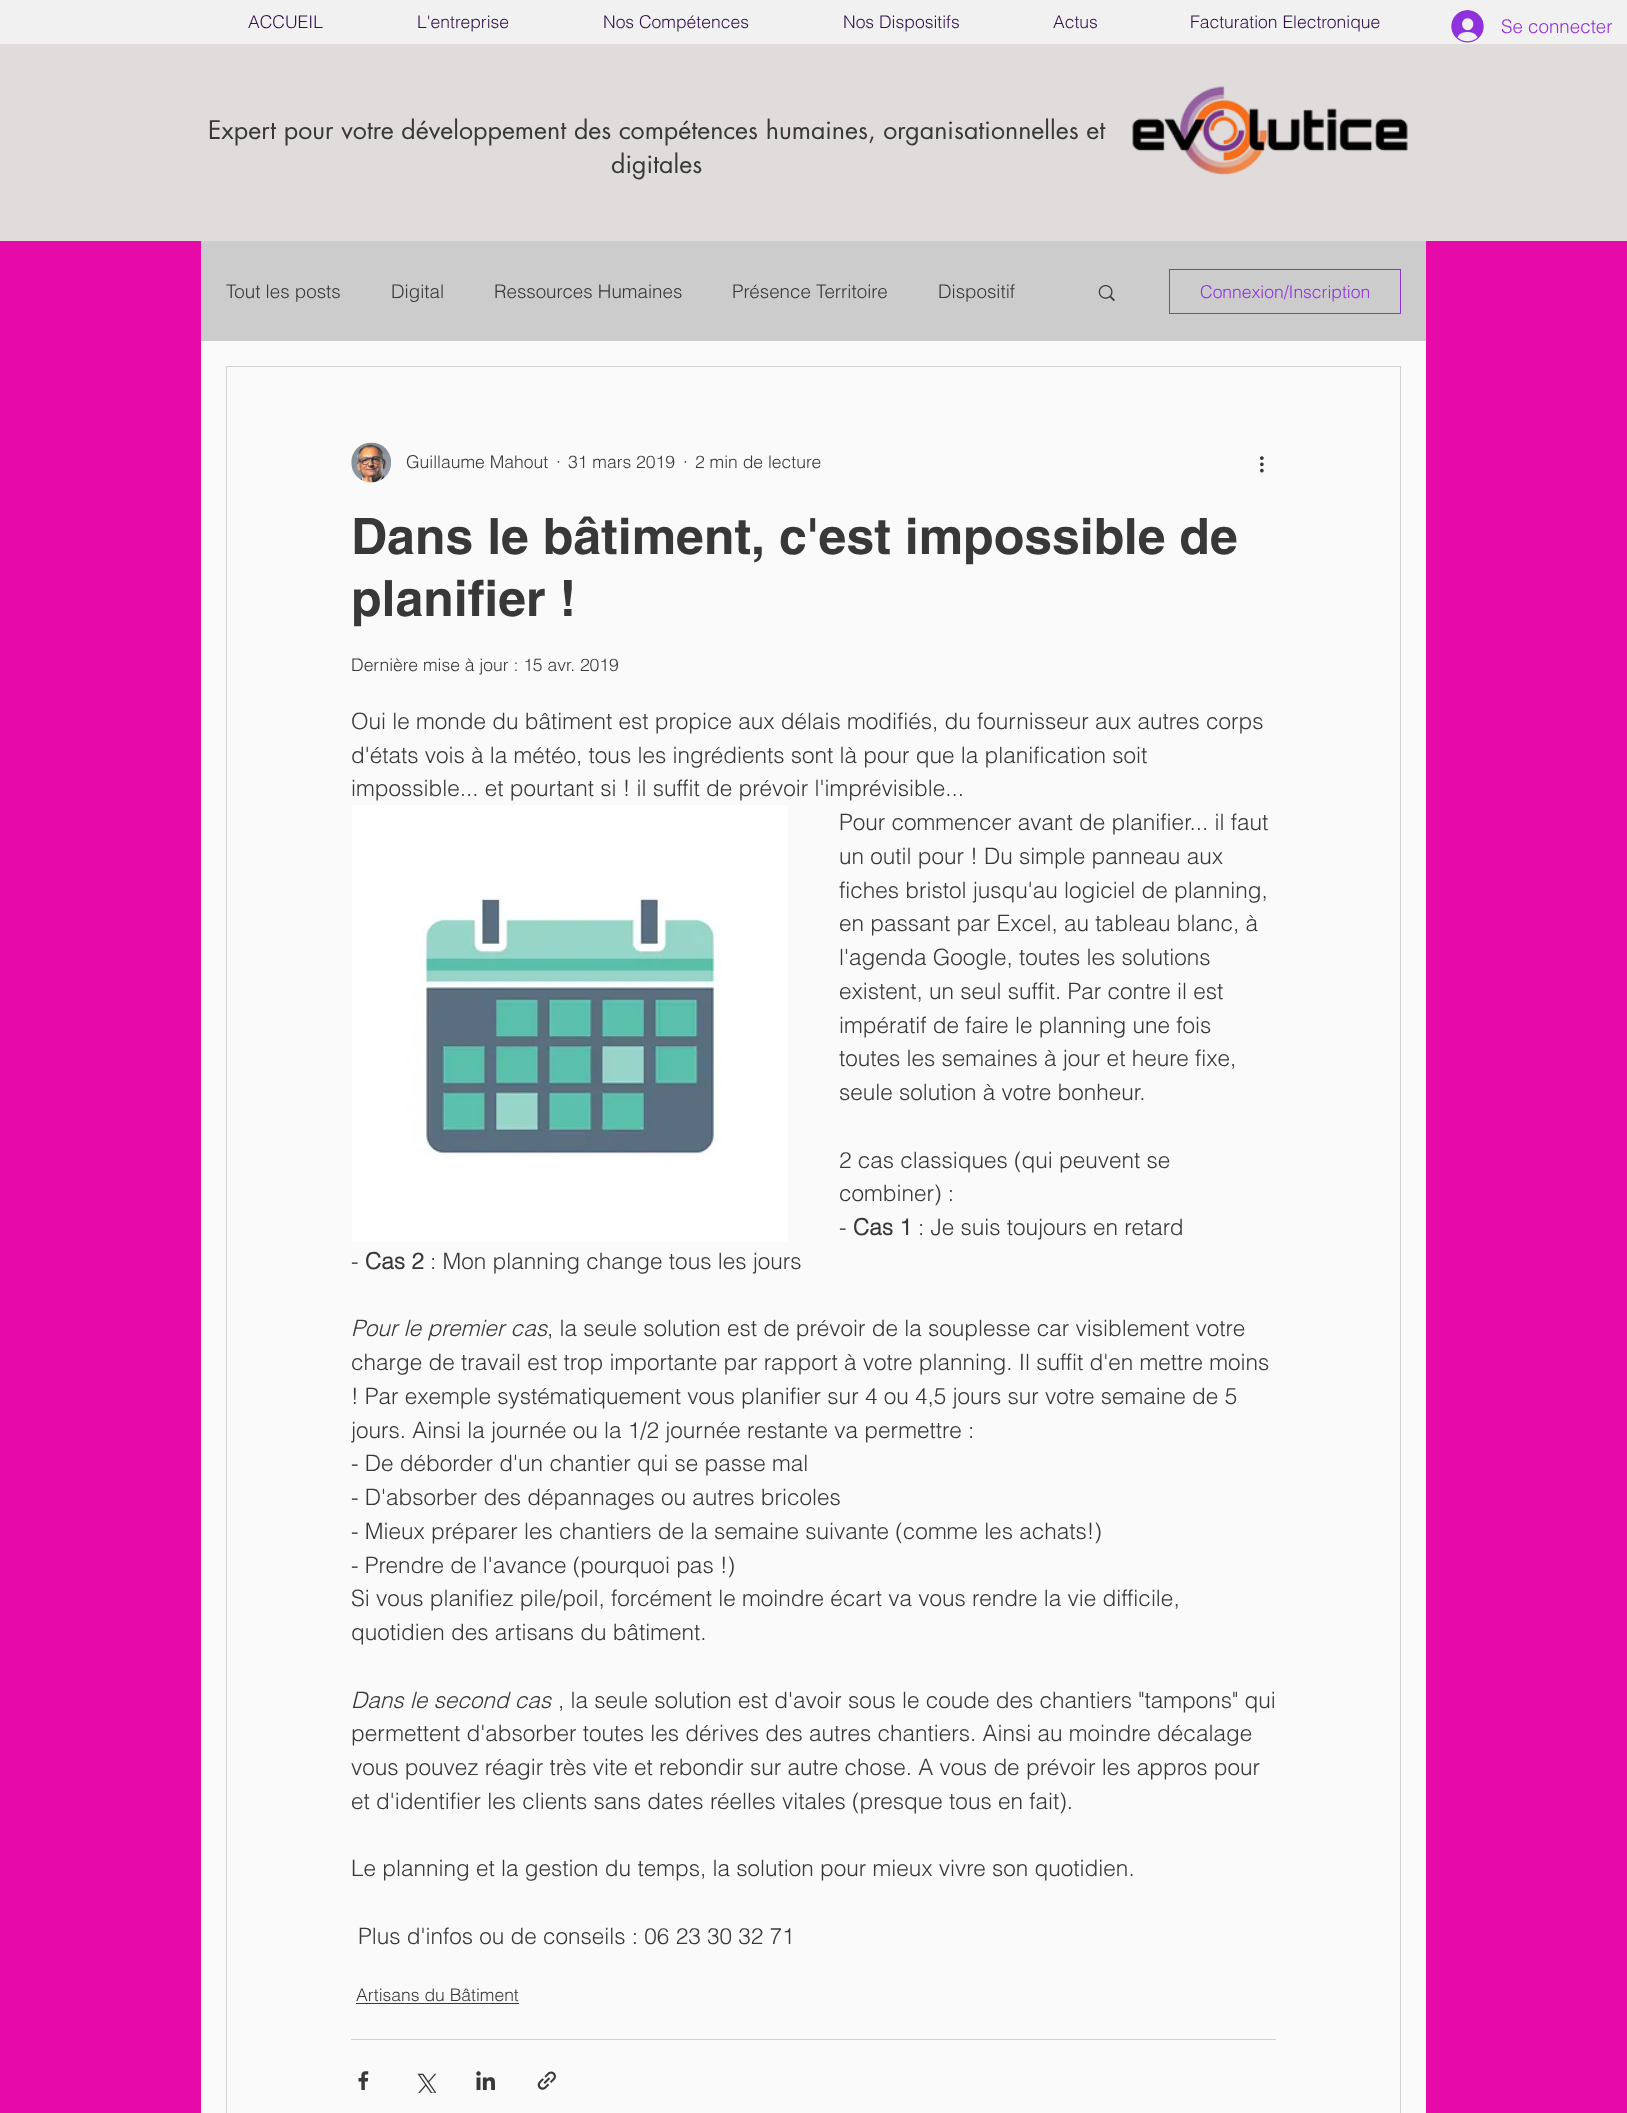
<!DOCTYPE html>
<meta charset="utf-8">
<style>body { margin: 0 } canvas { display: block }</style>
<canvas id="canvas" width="1627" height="2113"></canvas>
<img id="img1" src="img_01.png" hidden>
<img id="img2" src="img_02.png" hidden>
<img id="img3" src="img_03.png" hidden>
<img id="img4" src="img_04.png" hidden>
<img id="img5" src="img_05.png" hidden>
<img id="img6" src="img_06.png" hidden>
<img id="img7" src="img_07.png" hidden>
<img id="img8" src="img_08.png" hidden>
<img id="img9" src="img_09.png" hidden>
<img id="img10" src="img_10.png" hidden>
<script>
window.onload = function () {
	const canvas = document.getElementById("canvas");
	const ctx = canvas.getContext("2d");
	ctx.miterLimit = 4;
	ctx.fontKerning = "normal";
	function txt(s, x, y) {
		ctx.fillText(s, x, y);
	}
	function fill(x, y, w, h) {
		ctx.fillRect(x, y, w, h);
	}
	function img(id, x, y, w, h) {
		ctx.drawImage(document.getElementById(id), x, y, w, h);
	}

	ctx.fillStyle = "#E60BA8";
	fill(0, 0, 1627, 2113);
	ctx.fillStyle = "#F2F1F1";
	fill(0, 0, 1627, 44);
	img("img1", 1451, 10, 33, 33);
	ctx.fillStyle = "#E0DCDC";
	fill(0, 44, 1627, 197);
	img("img2", 1132, 86, 276, 89);
	ctx.fillStyle = "#FAFAFA";
	fill(201, 341, 1225, 1772);
	ctx.fillStyle = "#CCCCCC";
	fill(201, 241, 1225, 100);
	img("img3", 1098, 285, 17, 17);
	ctx.strokeStyle = "#9031DE";
	ctx.strokeRect(1169.5, 269.5, 231, 44);
	ctx.strokeStyle = "#D2D1D1";
	ctx.strokeRect(226.5, 366.5, 1174, 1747);
	img("img4", 351, 442, 41, 41);
	img("img5", 1260, 456, 4, 17);
	img("img6", 352, 805, 436, 437);
	ctx.fillStyle = "#383838";
	fill(356, 2003, 163, 1);
	ctx.fillStyle = "#D3D3D3";
	fill(351, 2039, 925, 1);
	img("img7", 358, 2071, 11, 19);
	img("img8", 417, 2073, 19, 20);
	img("img9", 476, 2071, 19, 19);
	img("img10", 537, 2071, 19, 19);
	ctx.font = "300 17.5px helvetica";
	ctx.fillStyle = "#30104A";
	txt("ACCUEIL", 248, 28);
	txt("L'entreprise", 417, 28);
	txt("Nos Compétences", 603, 28);
	txt("Nos Dispositifs", 843, 28);
	txt("Actus", 1053, 28);
	txt("Facturation Electronique", 1190, 28);
	ctx.font = "300 18.75px helvetica";
	ctx.fillStyle = "#9031DE";
	txt("Se connecter", 1501, 33);
	ctx.font = "25px futura";
	ctx.fillStyle = "#383838";
	txt("Expert pour votre développement des compétences humaines, organisationnelles et", 208, 139);
	txt("digitales", 611, 173);
	ctx.font = "300 18.75px helvetica";
	txt("Tout les posts", 226, 298);
	txt("Digital", 391, 298);
	txt("Ressources Humaines", 494, 298);
	txt("Présence Territoire", 732, 298);
	txt("Dispositif", 938, 298);
	ctx.font = "300 17.5px helvetica";
	ctx.fillStyle = "#9031DE";
	txt("Connexion/Inscription", 1200, 298);
	ctx.fillStyle = "#383838";
	txt("Guillaume Mahout", 406, 468);
	txt("·", 556, 468);
	txt("31 mars 2019", 568, 468);
	txt("·", 683, 468);
	txt("2 min de lecture", 695, 468);
	ctx.font = "bold 50px helvetica";
	txt("Dans le bâtiment, c'est impossible de", 351, 554);
	txt("planifier !", 351, 616);
	ctx.font = "300 17.5px helvetica";
	txt("Dernière mise à jour : 15 avr. 2019", 351, 671);
	ctx.font = "300 22.5px helvetica";
	txt("Oui le monde du bâtiment est propice aux délais modifiés, du fournisseur aux autres corps", 351, 729);
	txt("d'états vois à la météo, tous les ingrédients sont là pour que la planification soit", 351, 763);
	txt("impossible... et pourtant si ! il suffit de prévoir l'imprévisible...", 351, 796);
	txt("Pour commencer avant de planifier... il faut", 839, 830);
	txt("un outil pour ! Du simple panneau aux", 839, 864);
	txt("fiches bristol jusqu'au logiciel de planning,", 839, 898);
	txt("en passant par Excel, au tableau blanc, à", 839, 931);
	txt("l'agenda Google, toutes les solutions", 839, 965);
	txt("existent, un seul suffit. Par contre il est", 839, 999);
	txt("impératif de faire le planning une fois", 839, 1033);
	txt("toutes les semaines à jour et heure fixe,", 839, 1066);
	txt("seule solution à votre bonheur.", 839, 1100);
	txt("2 cas classiques (qui peuvent se", 839, 1168);
	txt("combiner) :", 839, 1201);
	txt("-", 839, 1235);
	ctx.font = "bold 22.5px 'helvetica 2'";
	txt("Cas 1", 853, 1235);
	ctx.font = "300 22.5px helvetica";
	txt(": Je suis toujours en retard", 918, 1235);
	txt("-", 351, 1269);
	ctx.font = "bold 22.5px 'helvetica 2'";
	txt("Cas 2", 365, 1269);
	ctx.font = "300 22.5px helvetica";
	txt(": Mon planning change tous les jours", 430, 1269);
	ctx.font = "italic 300 22.5px helvetica";
	txt("Pour le premier cas", 351, 1336);
	ctx.font = "300 22.5px helvetica";
	txt(", la seule solution est de prévoir de la souplesse car visiblement votre", 547, 1336);
	txt("charge de travail est trop importante par rapport à votre planning. Il suffit d'en mettre moins", 351, 1370);
	txt("! Par exemple systématiquement vous planifier sur 4 ou 4,5 jours sur votre semaine de 5", 351, 1404);
	txt("jours. Ainsi la journée ou la 1/2 journée restante va permettre :", 351, 1438);
	txt("- De déborder d'un chantier qui se passe mal", 351, 1471);
	txt("- D'absorber des dépannages ou autres bricoles", 351, 1505);
	txt("- Mieux préparer les chantiers de la semaine suivante (comme les achats!)", 351, 1539);
	txt("- Prendre de l'avance (pourquoi pas !)", 351, 1573);
	txt("Si vous planifiez pile/poil, forcément le moindre écart va vous rendre la vie difficile,", 351, 1606);
	txt("quotidien des artisans du bâtiment.", 351, 1640);
	ctx.font = "italic 300 22.5px helvetica";
	txt("Dans le second cas", 351, 1708);
	ctx.font = "300 22.5px helvetica";
	txt(", la seule solution est d'avoir sous le coude des chantiers \"tampons\" qui", 558, 1708);
	txt("permettent d'absorber toutes les dérives des autres chantiers. Ainsi au moindre décalage", 351, 1741);
	txt("vous pouvez réagir très vite et rebondir sur autre chose. A vous de prévoir les appros pour", 351, 1775);
	txt("et d'identifier les clients sans dates réelles vitales (presque tous en fait).", 351, 1809);
	txt("Le planning et la gestion du temps, la solution pour mieux vivre son quotidien.", 351, 1876);
	txt("Plus d'infos ou de conseils : 06 23 30 32 71", 358, 1944);
	ctx.font = "300 17.5px helvetica";
	txt("Artisans du Bâtiment", 356, 2001);
};
</script>
